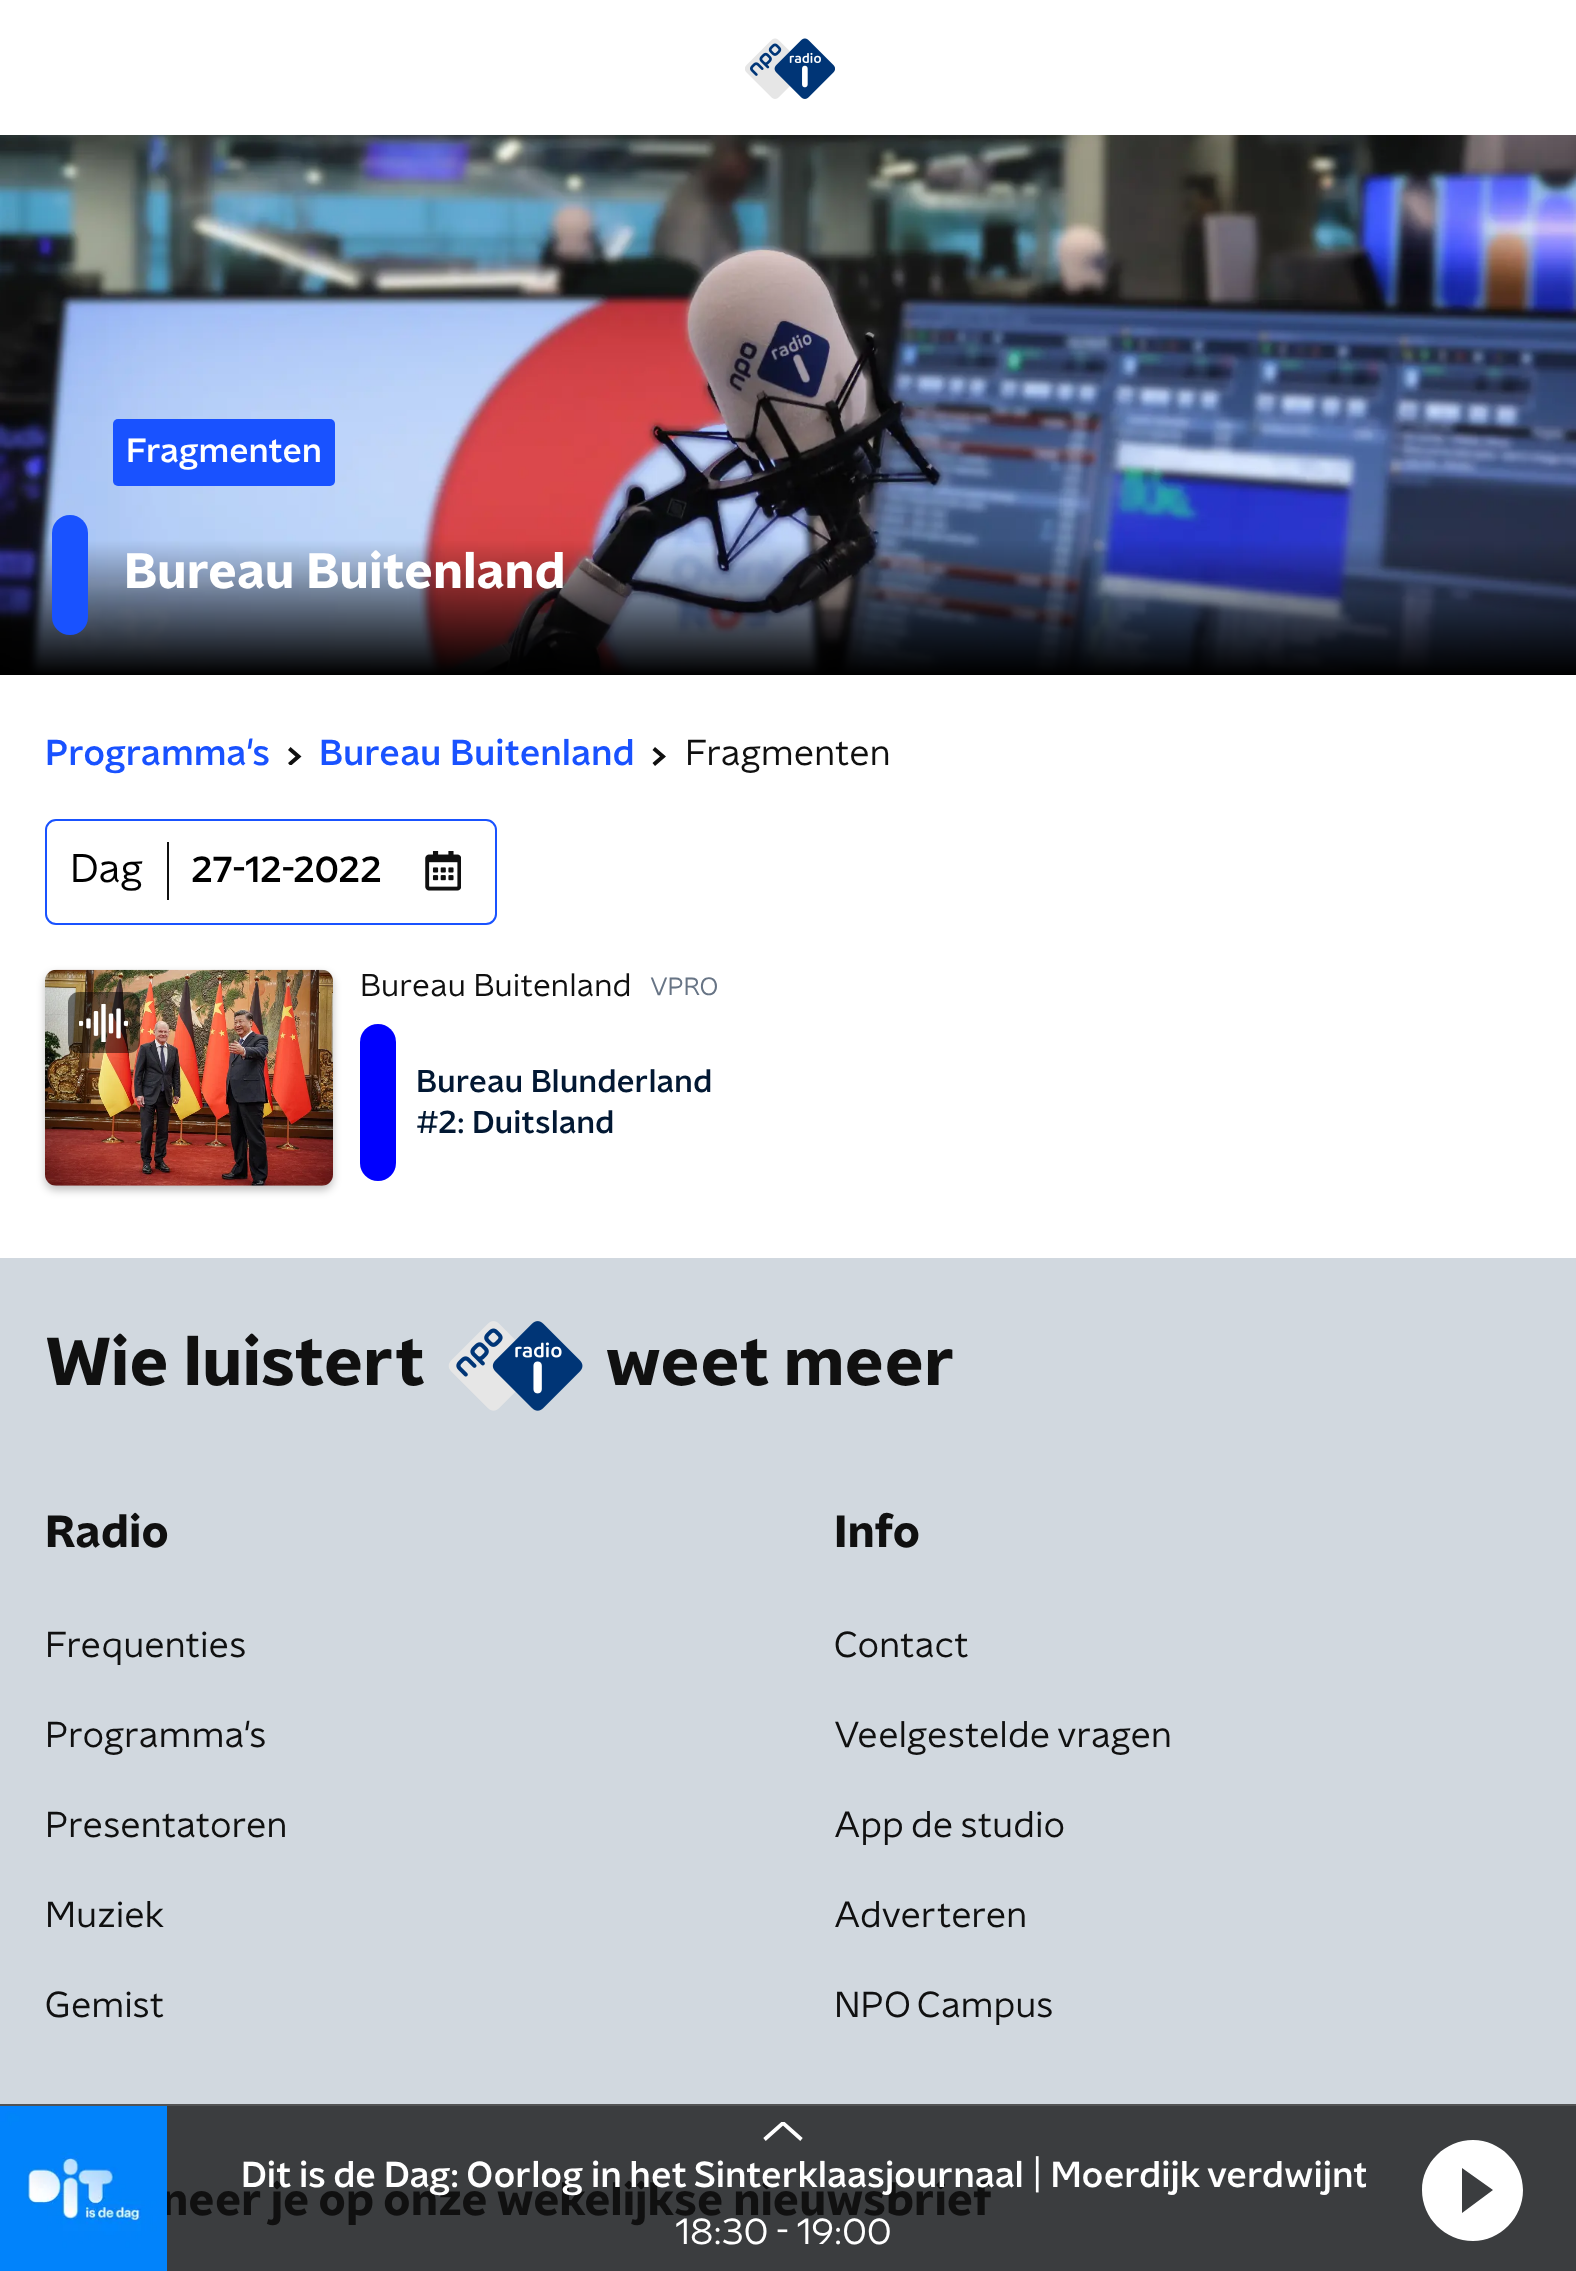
<!DOCTYPE html>
<meta charset="utf-8">
<style>body { margin: 0 } canvas { display: block }</style>
<canvas id="canvas" width="1576" height="2271"></canvas>
<img id="img1" src="img_01.png" hidden>
<img id="img2" src="img_02.png" hidden>
<img id="img3" src="img_03.png" hidden>
<img id="img4" src="img_04.png" hidden>
<img id="img5" src="img_05.png" hidden>
<img id="img6" src="img_06.png" hidden>
<img id="img7" src="img_07.png" hidden>
<script>
window.onload = function () {
	const canvas = document.getElementById("canvas");
	const ctx = canvas.getContext("2d");
	ctx.miterLimit = 4;
	ctx.fontKerning = "normal";
	function txt(s, x, y) {
		ctx.fillText(s, x, y);
	}
	function fill(x, y, w, h) {
		ctx.fillRect(x, y, w, h);
	}
	function round(x, y, w, h, r) {
		ctx.beginPath();
		ctx.roundRect(x, y, w, h, r);
		ctx.fill();
	}
	function img(id, x, y, w, h) {
		ctx.drawImage(document.getElementById(id), x, y, w, h);
	}

	ctx.fillStyle = "#FFFFFF";
	fill(0, 0, 1576, 2271);
	img("img1", 745, 38, 90, 61);
	img("img2", 0, 135, 1576, 540);
	ctx.fillStyle = "#1952FF";
	round(113, 419, 222, 67, 5);
	round(52, 515, 36, 120, 18);
	ctx.save();
	ctx.beginPath();
	ctx.rect(270, 747, 50, 18);
	ctx.clip();
	ctx.fillStyle = "#101010";
	ctx.beginPath();
	ctx.moveTo(290.5, 747);
	ctx.lineTo(301.5, 756.5);
	ctx.lineTo(290.5, 766);
	ctx.lineTo(288, 763);
	ctx.lineTo(295.5, 756.5);
	ctx.lineTo(288, 750);
	ctx.closePath();
	ctx.fill("evenodd");
	ctx.restore();
	ctx.fillStyle = "#101010";
	ctx.beginPath();
	ctx.moveTo(655, 747);
	ctx.lineTo(666, 756.5);
	ctx.lineTo(655, 766);
	ctx.lineTo(652.5, 763);
	ctx.lineTo(660, 756.5);
	ctx.lineTo(652.5, 750);
	ctx.closePath();
	ctx.fill("evenodd");
	ctx.beginPath();
	ctx.roundRect(46, 820, 450, 104, 10);
	ctx.strokeStyle = "#1952FF";
	ctx.lineWidth = 2;
	ctx.stroke();
	fill(167, 842, 2, 58);
	img("img3", 425, 851, 36, 40);
	ctx.fillStyle = "rgba(0, 0, 0, 0.25)";
	ctx.filter = "blur(4.5px)";
	ctx.beginPath();
	ctx.roundRect(45, 974, 288, 216, 11);
	ctx.fill();
	ctx.filter = "none";
	img("img4", 45, 969, 288, 217);
	ctx.fillStyle = "rgba(0, 0, 0, 0.5)";
	round(68, 992, 72, 61, 11);
	img("img5", 79, 1004, 49, 38);
	ctx.fillStyle = "#0000FF";
	round(360, 1024, 36, 157, 18);
	ctx.fillStyle = "#D1D8DF";
	fill(0, 1258, 1576, 846);
	ctx.fillStyle = "#3B3D3F";
	fill(167, 2106, 1409, 165);
	img("img6", 448, 1321, 135, 90);
	ctx.fillStyle = "#525354";
	fill(0, 2104, 1576, 2);
	ctx.save();
	ctx.beginPath();
	ctx.rect(763, 2122, 40, 20);
	ctx.clip();
	ctx.beginPath();
	ctx.moveTo(801.5, 2139.5);
	ctx.lineTo(783, 2123);
	ctx.lineTo(764.5, 2139.5);
	ctx.strokeStyle = "#FFFFFF";
	ctx.lineWidth = 3.7;
	ctx.stroke();
	ctx.restore();
	ctx.fillStyle = "#FFFFFF";
	ctx.beginPath();
	ctx.moveTo(1473, 2140);
	ctx.bezierCurveTo(1445, 2140, 1422, 2163, 1422, 2190);
	ctx.bezierCurveTo(1422, 2218, 1445, 2241, 1473, 2241);
	ctx.bezierCurveTo(1500, 2241, 1523, 2218, 1523, 2190);
	ctx.bezierCurveTo(1523, 2163, 1500, 2140, 1473, 2140);
	ctx.closePath();
	ctx.moveTo(1462, 2213);
	ctx.lineTo(1462, 2168);
	ctx.lineTo(1493, 2190);
	ctx.closePath();
	ctx.fill();
	ctx.font = "500 33.75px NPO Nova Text";
	txt("Fragmenten", 126, 462);
	ctx.font = "bold 49.5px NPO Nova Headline";
	txt("Bureau Buitenland", 124, 588);
	ctx.font = "500 36px NPO Nova Text";
	ctx.fillStyle = "#1952FF";
	txt("Programma's", 45, 765);
	txt("Bureau Buitenland", 319, 765);
	ctx.font = "36px NPO Nova Text";
	ctx.fillStyle = "#101010";
	txt("Fragmenten", 685, 765);
	ctx.font = "40px NPO Nova Text";
	ctx.fillStyle = "#000000";
	txt("Dag", 70, 882);
	ctx.font = "500 36px NPO Nova Text";
	txt("27-12-2022", 191, 882);
	ctx.font = "31.5px NPO Nova Text";
	ctx.fillStyle = "#101010";
	txt("Bureau Buitenland", 360, 996);
	ctx.font = "25px NPO Nova Text";
	ctx.fillStyle = "#677485";
	txt("VPRO", 650, 995);
	ctx.font = "500 31.5px NPO Nova Text";
	ctx.fillStyle = "#021833";
	txt("Bureau Blunderland", 416, 1092);
	txt("#2: Duitsland", 416, 1133);
	ctx.font = "bold 67.5px NPO Nova Headline";
	ctx.fillStyle = "#101010";
	txt("Wie luistert", 45, 1385);
	txt("weet meer", 605, 1385);
	ctx.font = "bold 45px NPO Nova Headline";
	txt("Radio", 45, 1547);
	ctx.font = "36px NPO Nova Text";
	txt("Frequenties", 45, 1657);
	txt("Programma's", 45, 1747);
	txt("Presentatoren", 45, 1837);
	txt("Muziek", 45, 1927);
	txt("Gemist", 45, 2017);
	ctx.font = "bold 45px NPO Nova Headline";
	txt("Info", 834, 1547);
	ctx.font = "36px NPO Nova Text";
	txt("Contact", 834, 1657);
	txt("Veelgestelde vragen", 834, 1747);
	txt("App de studio", 834, 1837);
	txt("Adverteren", 834, 1927);
	txt("NPO Campus", 834, 2017);
	ctx.font = "bold 45px NPO Nova Headline";
	txt("neer je op onze wekelijkse nieuwsbrief", 161, 2215);
	img("img7", 0, 2106, 167, 165);
	ctx.save();
	ctx.beginPath();
	ctx.rect(241, 2149, 1125, 58);
	ctx.clip();
	ctx.font = "500 36px NPO Nova Text";
	ctx.fillStyle = "#FFFFFF";
	txt("Dit is de Dag: Oorlog in het Sinterklaasjournaal | Moerdijk verdwijnt", 241, 2187);
	ctx.restore();
	ctx.font = "36px NPO Nova Text";
	ctx.fillStyle = "#FFFFFF";
	txt("18:30 - 19:00", 675, 2244);
};
</script>
